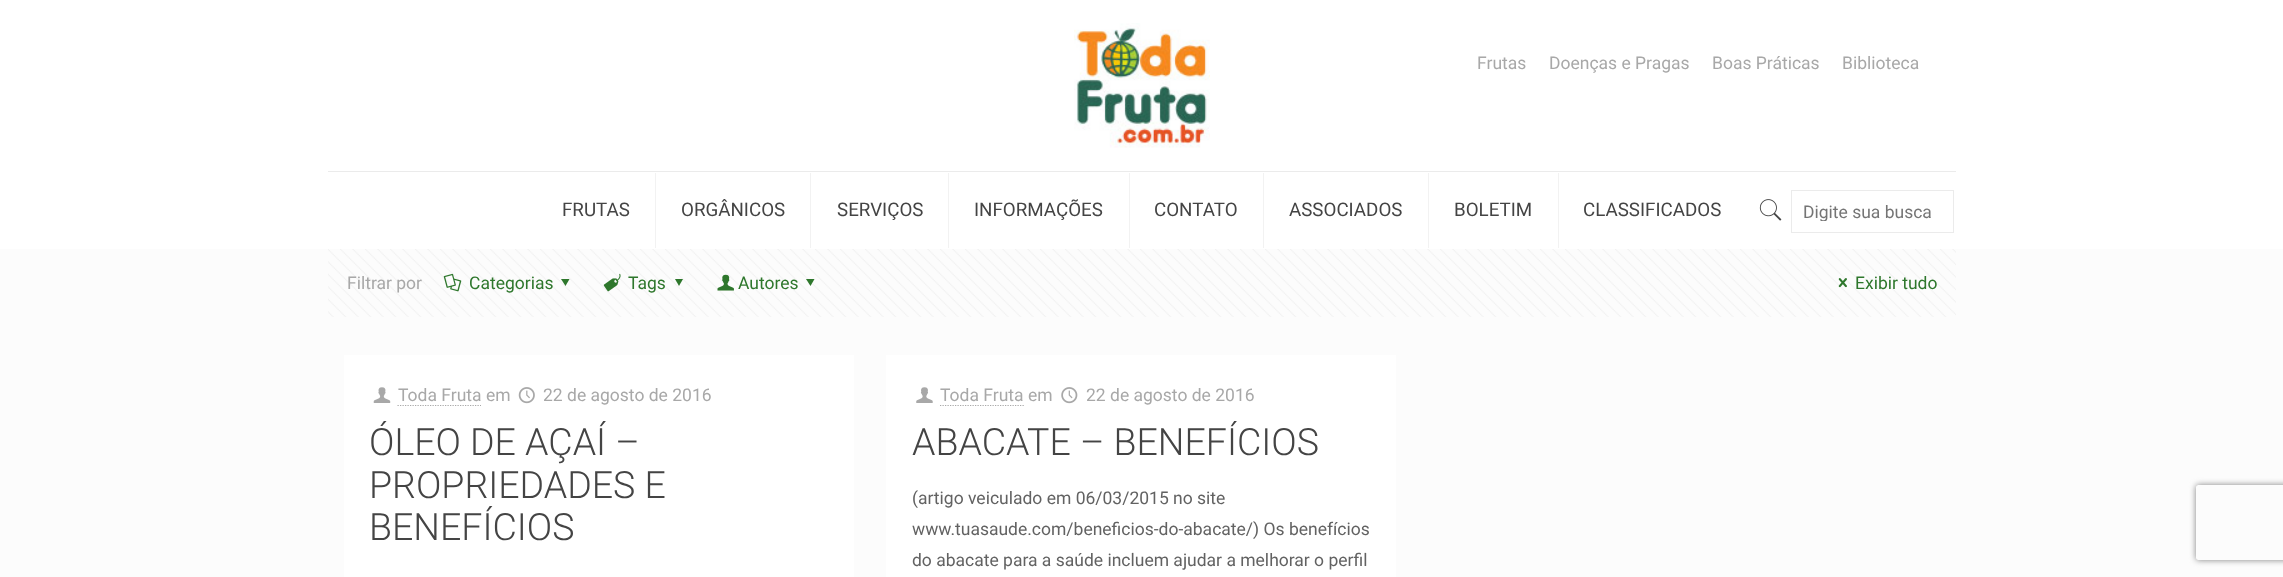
<!DOCTYPE html>
<meta charset="utf-8">
<style>body { margin: 0 } canvas { display: block }</style>
<canvas id="canvas" width="2283" height="577"></canvas>
<img id="img1" src="img_01.png" hidden>
<img id="img2" src="img_02.png" hidden>
<img id="img3" src="img_03.png" hidden>
<img id="img4" src="img_04.png" hidden>
<img id="img5" src="img_05.png" hidden>
<img id="img6" src="img_06.png" hidden>
<img id="img7" src="img_07.png" hidden>
<img id="img8" src="img_08.png" hidden>
<img id="img9" src="img_09.png" hidden>
<img id="img10" src="img_10.png" hidden>
<img id="img11" src="img_11.png" hidden>
<script>
window.onload = function () {
	const canvas = document.getElementById("canvas");
	const ctx = canvas.getContext("2d");
	ctx.miterLimit = 4;
	ctx.fontKerning = "normal";
	function txt(s, x, y) {
		ctx.fillText(s, x, y);
	}
	function fill(x, y, w, h) {
		ctx.fillRect(x, y, w, h);
	}
	function img(id, x, y, w, h) {
		ctx.drawImage(document.getElementById(id), x, y, w, h);
	}

	ctx.fillStyle = "#FCFCFC";
	fill(0, 0, 2283, 577);
	ctx.fillStyle = "#FFFFFF";
	fill(0, 0, 2283, 249);
	ctx.fillStyle = "#EBEBEB";
	fill(328, 171, 1628, 1);
	img("img1", 1074, 23, 136, 125);
	ctx.fillStyle = "#F2F2F2";
	fill(655, 173, 1, 75);
	fill(810, 173, 1, 75);
	fill(948, 173, 1, 75);
	fill(1129, 173, 1, 75);
	fill(1263, 173, 1, 75);
	fill(1428, 173, 1, 75);
	fill(1558, 173, 1, 75);
	img("img2", 1759, 199, 23, 22);
	ctx.strokeStyle = "#EBEBEB";
	ctx.strokeRect(1791.5, 190.5, 162, 42);
	img("img3", 328, 249, 1628, 68);
	img("img4", 443, 273, 19, 19);
	ctx.fillStyle = "#2E772C";
	ctx.beginPath();
	ctx.moveTo(569.5, 279);
	ctx.lineTo(565.5, 286);
	ctx.lineTo(561, 279);
	ctx.closePath();
	ctx.fill();
	img("img5", 603, 273, 18, 19);
	ctx.beginPath();
	ctx.moveTo(683, 279);
	ctx.lineTo(679, 286);
	ctx.lineTo(675, 279);
	ctx.closePath();
	ctx.fill();
	img("img6", 717, 274, 17, 17);
	ctx.beginPath();
	ctx.moveTo(814.5, 279);
	ctx.lineTo(810.5, 286);
	ctx.lineTo(806, 279);
	ctx.closePath();
	ctx.fill();
	img("img7", 1838, 278, 9, 10);
	ctx.fillStyle = "#FFFFFF";
	fill(344, 355, 510, 222);
	img("img8", 373, 387, 18, 16);
	ctx.beginPath();
	ctx.moveTo(397.5, 405.5);
	ctx.lineTo(481, 405.5);
	ctx.strokeStyle = "#A8A8A8";
	ctx.lineWidth = 1.2;
	ctx.setLineDash([1.25, 1.25]);
	ctx.stroke();
	img("img9", 518, 387, 17, 17);
	fill(886, 355, 510, 222);
	img("img10", 916, 387, 17, 16);
	ctx.beginPath();
	ctx.moveTo(940, 405.5);
	ctx.lineTo(1024, 405.5);
	ctx.stroke();
	img("img11", 1061, 387, 17, 17);
	ctx.save();
	ctx.beginPath();
	ctx.moveTo(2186, 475);
	ctx.lineTo(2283, 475);
	ctx.lineTo(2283, 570);
	ctx.lineTo(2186, 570);
	ctx.closePath();
	ctx.moveTo(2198.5, 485);
	ctx.lineTo(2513.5, 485);
	ctx.bezierCurveTo(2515, 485, 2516, 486, 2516, 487.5);
	ctx.lineTo(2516, 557.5);
	ctx.bezierCurveTo(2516, 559, 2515, 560, 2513.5, 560);
	ctx.lineTo(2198.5, 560);
	ctx.bezierCurveTo(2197, 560, 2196, 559, 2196, 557.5);
	ctx.lineTo(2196, 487.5);
	ctx.bezierCurveTo(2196, 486, 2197, 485, 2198.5, 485);
	ctx.closePath();
	ctx.clip("evenodd");
	ctx.fillStyle = "#808080";
	ctx.filter = "blur(3px)";
	ctx.beginPath();
	ctx.roundRect(2196, 485, 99, 75, 2.5);
	ctx.fill();
	ctx.filter = "none";
	ctx.restore();
	ctx.font = "17.5px Roboto";
	ctx.fillStyle = "#A8A8A8";
	txt("Frutas", 1477, 69);
	txt("Doenças e Pragas", 1549, 69);
	txt("Boas Práticas", 1712, 69);
	txt("Biblioteca", 1842, 69);
	ctx.font = "18.75px Roboto";
	ctx.fillStyle = "#444444";
	txt("FRUTAS", 562, 216);
	txt("ORGÂNICOS", 681, 216);
	txt("SERVIÇOS", 837, 216);
	txt("INFORMAÇÕES", 974, 216);
	txt("CONTATO", 1154, 216);
	txt("ASSOCIADOS", 1289, 216);
	txt("BOLETIM", 1454, 216);
	txt("CLASSIFICADOS", 1583, 216);
	ctx.save();
	ctx.beginPath();
	ctx.rect(1803, 201, 140, 20);
	ctx.clip();
	ctx.font = "17.5px Roboto";
	ctx.fillStyle = "#757575";
	txt("Digite sua busca", 1803, 218);
	ctx.restore();
	ctx.font = "17.5px Roboto";
	ctx.fillStyle = "#A8A8A8";
	txt("Filtrar por", 347, 289);
	ctx.fillStyle = "#2E772C";
	txt("Categorias", 469, 289);
	txt("Tags", 628, 289);
	txt("Autores", 738, 289);
	txt("Exibir tudo", 1855, 289);
	ctx.fillStyle = "#A8A8A8";
	txt("Toda Fruta em", 398, 401);
	txt("22 de agosto de 2016", 543, 401);
	ctx.font = "300 37.5px Roboto";
	ctx.fillStyle = "#444444";
	txt("ÓLEO DE AÇAÍ –", 369, 455);
	txt("PROPRIEDADES E", 369, 498);
	txt("BENEFÍCIOS", 369, 540);
	ctx.font = "17.5px Roboto";
	ctx.fillStyle = "#A8A8A8";
	txt("Toda Fruta em", 940, 401);
	txt("22 de agosto de 2016", 1086, 401);
	ctx.font = "300 37.5px Roboto";
	ctx.fillStyle = "#444444";
	txt("ABACATE – BENEFÍCIOS", 912, 455);
	ctx.font = "17.5px Roboto";
	ctx.fillStyle = "#626262";
	txt("(artigo veiculado em 06/03/2015 no site", 912, 504);
	txt("www.tuasaude.com/beneficios-do-abacate/) Os benefícios", 912, 535);
	txt("do abacate para a saúde incluem ajudar a melhorar o perfil", 912, 566);
};
</script>
